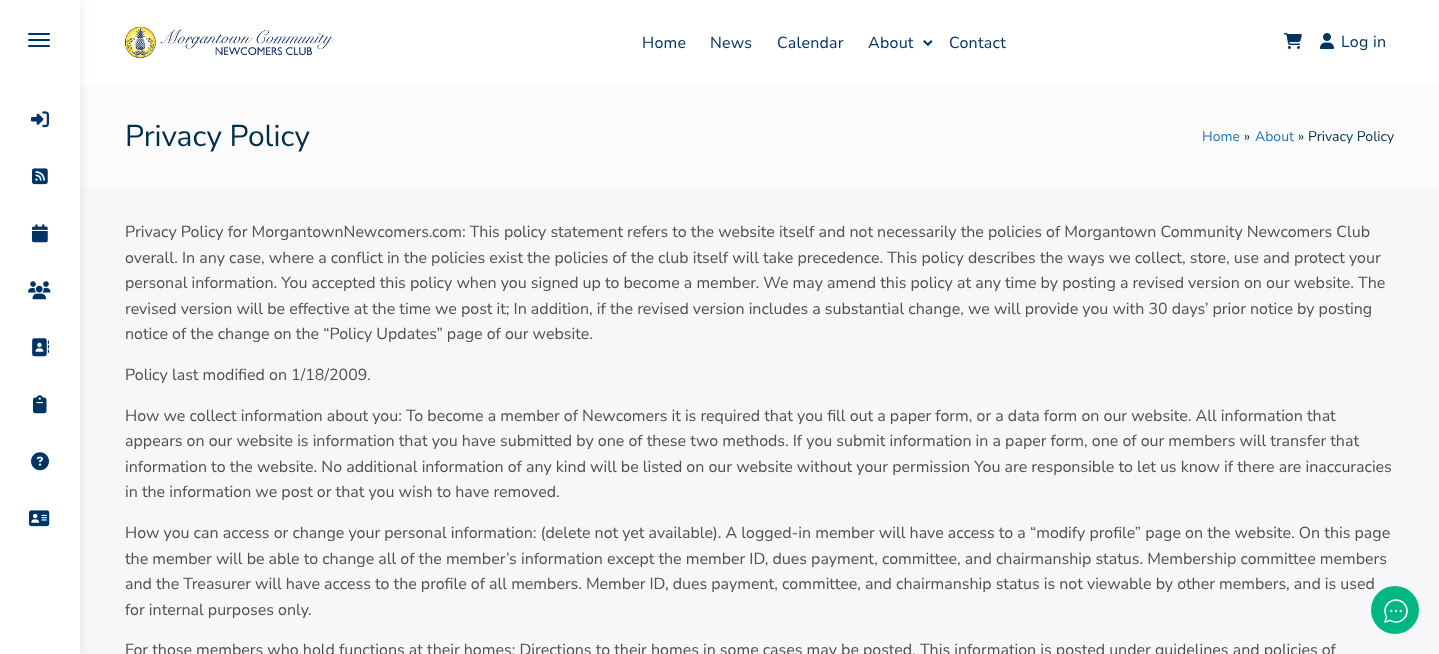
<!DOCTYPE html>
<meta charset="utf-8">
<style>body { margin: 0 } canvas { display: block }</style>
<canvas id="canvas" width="1439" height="654"></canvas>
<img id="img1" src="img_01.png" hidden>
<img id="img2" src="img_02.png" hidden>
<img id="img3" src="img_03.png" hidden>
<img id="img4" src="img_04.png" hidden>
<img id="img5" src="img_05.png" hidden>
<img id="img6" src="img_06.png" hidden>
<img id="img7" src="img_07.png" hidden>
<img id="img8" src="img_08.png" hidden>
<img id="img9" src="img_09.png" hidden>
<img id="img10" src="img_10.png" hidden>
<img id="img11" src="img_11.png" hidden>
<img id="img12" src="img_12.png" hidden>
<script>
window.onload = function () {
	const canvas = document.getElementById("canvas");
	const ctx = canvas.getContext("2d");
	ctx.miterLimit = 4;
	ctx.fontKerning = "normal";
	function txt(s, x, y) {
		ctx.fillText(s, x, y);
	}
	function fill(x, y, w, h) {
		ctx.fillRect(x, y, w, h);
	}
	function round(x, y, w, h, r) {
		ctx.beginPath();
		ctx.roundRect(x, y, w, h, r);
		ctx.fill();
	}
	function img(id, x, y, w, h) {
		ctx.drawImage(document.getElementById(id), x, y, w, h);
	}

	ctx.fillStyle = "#F7F7F9";
	fill(0, 0, 1439, 654);
	ctx.fillStyle = "#FFFFFF";
	fill(80, 0, 1359, 86);
	ctx.fillStyle = "#FBFBFC";
	fill(80, 86, 1359, 102);
	ctx.fillStyle = "rgba(18, 43, 70, 0.1)";
	ctx.filter = "blur(6.5px)";
	ctx.beginPath();
	ctx.rect(0, 3, 80, 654);
	ctx.fill();
	ctx.filter = "none";
	ctx.fillStyle = "#FFFFFF";
	fill(0, 0, 80, 654);
	ctx.fillStyle = "#003366";
	round(28, 33, 22, 2, 1);
	round(28, 39, 22, 2, 1);
	round(28, 45, 22, 2, 1);
	img("img1", 31, 111, 18, 17);
	img("img2", 32, 168, 16, 17);
	img("img3", 32, 224, 16, 19);
	img("img4", 28, 281, 23, 19);
	img("img5", 32, 338, 17, 19);
	img("img6", 33, 395, 14, 19);
	img("img7", 31, 452, 18, 19);
	img("img8", 29, 510, 21, 17);
	img("img9", 124, 26, 211, 33);
	ctx.beginPath();
	ctx.moveTo(931, 40);
	ctx.lineTo(932.5, 41.5);
	ctx.lineTo(928, 46);
	ctx.lineTo(926.5, 44.5);
	ctx.closePath();
	ctx.fill();
	ctx.beginPath();
	ctx.moveTo(924.5, 40);
	ctx.lineTo(929, 44.5);
	ctx.lineTo(928, 46);
	ctx.lineTo(923, 41.5);
	ctx.closePath();
	ctx.fill();
	img("img10", 1284, 33, 18, 16);
	img("img11", 1320, 33, 14, 16);
	ctx.letterSpacing = "0.25px";
	ctx.font = "16px Nunito Sans";
	txt("Home", 642, 48);
	txt("News", 710, 48);
	txt("Calendar", 777, 48);
	txt("About", 868, 48);
	txt("Contact", 949, 48);
	txt("Log in", 1341, 47);
	ctx.letterSpacing = "0px";
	ctx.font = "30px Nunito Sans";
	ctx.fillStyle = "#003049";
	txt("Privacy Policy", 125, 146);
	ctx.font = "14px Nunito Sans";
	ctx.fillStyle = "#1E73BE";
	txt("Home", 1202, 141);
	ctx.fillStyle = "#003049";
	txt("»", 1244, 141);
	ctx.fillStyle = "#1E73BE";
	txt("About", 1255, 141);
	ctx.fillStyle = "#003049";
	txt("»", 1298, 141);
	txt("Privacy Policy", 1308, 141);
	ctx.font = "16px Nunito Sans";
	ctx.fillStyle = "#505050";
	txt("Privacy Policy for MorgantownNewcomers.com: This policy statement refers to the website itself and not necessarily the policies of Morgantown Community Newcomers Club", 125, 237);
	txt("overall. In any case, where a conflict in the policies exist the policies of the club itself will take precedence. This policy describes the ways we collect, store, use and protect your", 125, 263);
	txt("personal information. You accepted this policy when you signed up to become a member. We may amend this policy at any time by posting a revised version on our website. The", 125, 288);
	txt("revised version will be effective at the time we post it; In addition, if the revised version includes a substantial change, we will provide you with 30 days’ prior notice by posting", 125, 314);
	txt("notice of the change on the “Policy Updates” page of our website.", 125, 339);
	txt("Policy last modified on 1/18/2009.", 125, 380);
	txt("How we collect information about you: To become a member of Newcomers it is required that you fill out a paper form, or a data form on our website. All information that", 125, 421);
	txt("appears on our website is information that you have submitted by one of these two methods. If you submit information in a paper form, one of our members will transfer that", 125, 446);
	txt("information to the website. No additional information of any kind will be listed on our website without your permission You are responsible to let us know if there are inaccuracies", 125, 472);
	txt("in the information we post or that you wish to have removed.", 125, 497);
	txt("How you can access or change your personal information: (delete not yet available). A logged-in member will have access to a “modify profile” page on the website. On this page", 125, 538);
	txt("the member will be able to change all of the member’s information except the member ID, dues payment, committee, and chairmanship status. Membership committee members", 125, 564);
	txt("and the Treasurer will have access to the profile of all members. Member ID, dues payment, committee, and chairmanship status is not viewable by other members, and is used", 125, 589);
	txt("for internal purposes only.", 125, 615);
	txt("For those members who hold functions at their homes: Directions to their homes in some cases may be posted. This information is posted under guidelines and policies of", 125, 655);
	ctx.fillStyle = "#00B682";
	ctx.beginPath();
	ctx.arc(1395, 610, 24, 0, Math.PI * 2);
	ctx.fill();
	img("img12", 1384, 599, 24, 24);
};
</script>
